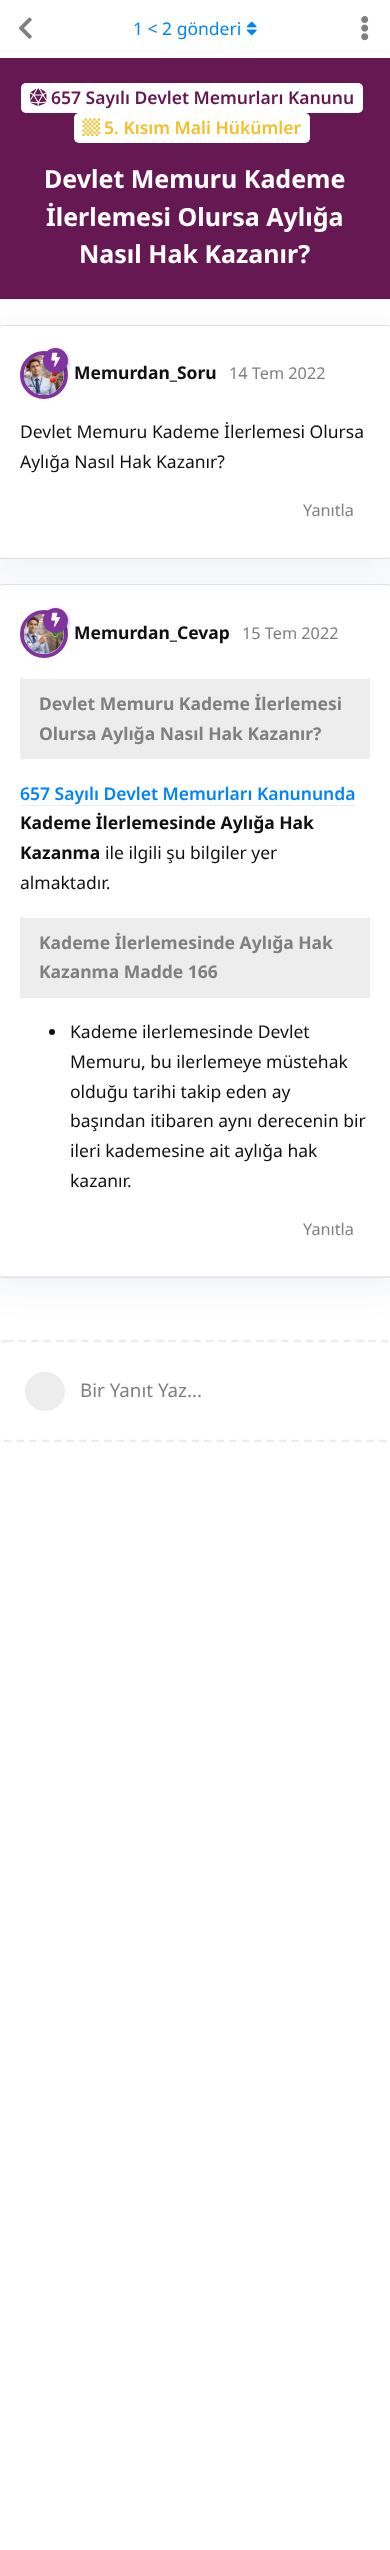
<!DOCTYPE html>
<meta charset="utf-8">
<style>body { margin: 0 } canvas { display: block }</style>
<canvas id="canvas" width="390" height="2550"></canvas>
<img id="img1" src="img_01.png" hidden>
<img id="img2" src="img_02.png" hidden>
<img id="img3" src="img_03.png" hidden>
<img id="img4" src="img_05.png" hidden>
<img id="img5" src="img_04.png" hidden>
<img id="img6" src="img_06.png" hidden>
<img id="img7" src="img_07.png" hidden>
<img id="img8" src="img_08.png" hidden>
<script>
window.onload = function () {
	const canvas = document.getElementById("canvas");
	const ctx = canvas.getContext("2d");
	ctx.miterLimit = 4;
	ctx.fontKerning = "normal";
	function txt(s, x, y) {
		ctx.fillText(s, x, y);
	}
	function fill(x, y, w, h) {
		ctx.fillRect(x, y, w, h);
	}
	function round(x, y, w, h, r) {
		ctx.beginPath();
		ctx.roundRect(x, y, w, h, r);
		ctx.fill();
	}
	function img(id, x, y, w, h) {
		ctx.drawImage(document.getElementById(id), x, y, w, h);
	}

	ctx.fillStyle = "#FFFFFF";
	fill(0, 0, 390, 2550);
	img("img1", 18, 17, 14, 22);
	ctx.fillStyle = "#EDEDED";
	fill(0, 299, 390, 1);
	img("img2", 246, 21, 11, 15);
	img("img3", 361, 16, 8, 25);
	fill(0, 558, 390, 1);
	ctx.fillStyle = "#651851";
	fill(0, 58, 390, 241);
	ctx.save();
	ctx.beginPath();
	ctx.moveTo(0, 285);
	ctx.lineTo(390, 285);
	ctx.lineTo(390, 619);
	ctx.lineTo(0, 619);
	ctx.closePath();
	ctx.moveTo(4, 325);
	ctx.lineTo(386, 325);
	ctx.bezierCurveTo(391.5, 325, 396, 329.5, 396, 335);
	ctx.lineTo(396, 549);
	ctx.bezierCurveTo(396, 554.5, 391.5, 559, 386, 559);
	ctx.lineTo(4, 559);
	ctx.bezierCurveTo(-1.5, 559, -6, 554.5, -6, 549);
	ctx.lineTo(-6, 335);
	ctx.bezierCurveTo(-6, 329.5, -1.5, 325, 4, 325);
	ctx.closePath();
	ctx.clip("evenodd");
	ctx.fillStyle = "rgba(84, 102, 134, 0.08)";
	ctx.filter = "blur(15px)";
	ctx.beginPath();
	ctx.roundRect(-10, 331, 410, 242, 14);
	ctx.fill();
	ctx.filter = "none";
	ctx.restore();
	ctx.beginPath();
	ctx.roundRect(-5.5, 325.5, 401, 233, 9.5);
	ctx.strokeStyle = "#DBDFE6";
	ctx.stroke();
	ctx.fillStyle = "#EDEDED";
	ctx.beginPath();
	ctx.arc(44, 375, 22, 0, Math.PI * 2);
	ctx.fill();
	ctx.strokeStyle = "#80349E";
	ctx.lineWidth = 4;
	ctx.stroke();
	img("img4", 23, 355, 41, 40);
	ctx.fillStyle = "rgba(0, 0, 0, 0.35)";
	ctx.filter = "blur(2.5px)";
	ctx.beginPath();
	ctx.roundRect(43, 350, 25, 25, 12.5);
	ctx.fill();
	ctx.filter = "none";
	ctx.fillStyle = "#80349E";
	ctx.beginPath();
	ctx.arc(55.5, 360.5, 12.5, 0, Math.PI * 2);
	ctx.fill();
	img("img5", 51, 352, 9, 15);
	ctx.fillStyle = "#EDEDED";
	fill(0, 1276, 390, 1);
	ctx.save();
	ctx.beginPath();
	ctx.moveTo(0, 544);
	ctx.lineTo(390, 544);
	ctx.lineTo(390, 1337);
	ctx.lineTo(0, 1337);
	ctx.closePath();
	ctx.moveTo(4, 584);
	ctx.lineTo(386, 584);
	ctx.bezierCurveTo(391.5, 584, 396, 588.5, 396, 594);
	ctx.lineTo(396, 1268);
	ctx.bezierCurveTo(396, 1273.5, 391.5, 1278, 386, 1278);
	ctx.lineTo(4, 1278);
	ctx.bezierCurveTo(-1.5, 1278, -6, 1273.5, -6, 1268);
	ctx.lineTo(-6, 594);
	ctx.bezierCurveTo(-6, 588.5, -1.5, 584, 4, 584);
	ctx.closePath();
	ctx.clip("evenodd");
	ctx.fillStyle = "rgba(84, 102, 134, 0.08)";
	ctx.filter = "blur(15px)";
	ctx.beginPath();
	ctx.roundRect(-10, 590, 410, 701, 14);
	ctx.fill();
	ctx.filter = "none";
	ctx.restore();
	ctx.beginPath();
	ctx.roundRect(-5.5, 584.5, 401, 693, 9.5);
	ctx.strokeStyle = "#DBDFE6";
	ctx.lineWidth = 1;
	ctx.stroke();
	ctx.beginPath();
	ctx.arc(44, 634, 22, 0, Math.PI * 2);
	ctx.fill();
	ctx.strokeStyle = "#80349E";
	ctx.lineWidth = 4;
	ctx.stroke();
	img("img6", 23, 613, 41, 41);
	ctx.fillStyle = "rgba(0, 0, 0, 0.35)";
	ctx.filter = "blur(2.5px)";
	ctx.beginPath();
	ctx.roundRect(43, 610, 25, 25, 12.5);
	ctx.fill();
	ctx.filter = "none";
	ctx.fillStyle = "#80349E";
	ctx.beginPath();
	ctx.arc(55.5, 620.5, 12.5, 0, Math.PI * 2);
	ctx.fill();
	img("img5", 51, 612, 9, 15);
	ctx.fillStyle = "#EDEDED";
	round(20, 676, 350, 85, 5);
	ctx.fillStyle = "#FFFFFF";
	fill(23, 676, 345, 3);
	fill(23, 759, 345, 2);
	ctx.fillStyle = "#EDEDED";
	fill(20, 805, 335, 1);
	round(20, 915, 350, 85, 5);
	ctx.fillStyle = "#FFFFFF";
	fill(23, 915, 345, 3);
	fill(23, 998, 345, 2);
	ctx.fillStyle = "#111111";
	ctx.beginPath();
	ctx.arc(52, 1032, 3, 0, Math.PI * 2);
	ctx.fill();
	ctx.beginPath();
	ctx.moveTo(6, 1341);
	ctx.lineTo(384, 1341);
	ctx.bezierCurveTo(390, 1341, 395, 1346.5, 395, 1352.5);
	ctx.lineTo(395, 1430);
	ctx.bezierCurveTo(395, 1436, 390, 1441, 384, 1441);
	ctx.lineTo(6, 1441);
	ctx.bezierCurveTo(0, 1441, -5, 1436, -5, 1430);
	ctx.lineTo(-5, 1352.5);
	ctx.bezierCurveTo(-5, 1346.5, 0, 1341, 6, 1341);
	ctx.closePath();
	ctx.strokeStyle = "#EDEDED";
	ctx.lineWidth = 2.5;
	ctx.setLineDash([7.5, 5]);
	ctx.stroke();
	ctx.fillStyle = "#EDEDED";
	ctx.beginPath();
	ctx.roundRect(23, 1370, 44, 43, 21.5);
	ctx.fill();
	ctx.strokeStyle = "#FFFFFF";
	ctx.lineWidth = 4;
	ctx.setLineDash([]);
	ctx.stroke();
	ctx.fillStyle = "#FFFFFF";
	round(21, 83, 342, 30, 5);
	img("img7", 30, 88, 17, 18);
	round(74, 113, 236, 30, 5);
	img("img8", 82, 118, 18, 18);
	ctx.font = "17.5px Noto Sans";
	ctx.fillStyle = "#0084FC";
	txt("1 < 2 gönderi", 133, 35);
	ctx.font = "bold 17.5px Noto Sans";
	ctx.fillStyle = "#111111";
	txt("Memurdan_Soru", 74, 379);
	ctx.font = "16.25px Noto Sans";
	ctx.fillStyle = "#808080";
	txt("14 Tem 2022", 229, 379);
	ctx.font = "17.5px Noto Sans";
	ctx.fillStyle = "#111111";
	txt("Devlet Memuru Kademe İlerlemesi Olursa", 20, 438);
	txt("Aylığa Nasıl Hak Kazanır?", 20, 468);
	ctx.font = "16.25px Noto Sans";
	ctx.fillStyle = "#808080";
	txt("Yanıtla", 303, 516);
	ctx.font = "bold 17.5px Noto Sans";
	ctx.fillStyle = "#111111";
	txt("Memurdan_Cevap", 74, 639);
	ctx.font = "16.25px Noto Sans";
	ctx.fillStyle = "#808080";
	txt("15 Tem 2022", 242, 639);
	ctx.font = "bold 17.5px Noto Sans";
	txt("Devlet Memuru Kademe İlerlemesi", 39, 710);
	txt("Olursa Aylığa Nasıl Hak Kazanır?", 39, 740);
	ctx.font = "600 17.5px Noto Sans";
	ctx.fillStyle = "#0084FC";
	txt("657 Sayılı Devlet Memurları Kanununda", 20, 800);
	ctx.font = "bold 17.5px Noto Sans";
	ctx.fillStyle = "#111111";
	txt("Kademe İlerlemesinde Aylığa Hak", 20, 829);
	txt("Kazanma", 20, 859);
	ctx.font = "17.5px Noto Sans";
	txt("ile ilgili şu bilgiler yer", 105, 859);
	txt("almaktadır.", 20, 889);
	ctx.font = "bold 17.5px Noto Sans";
	ctx.fillStyle = "#808080";
	txt("Kademe İlerlemesinde Aylığa Hak", 39, 949);
	txt("Kazanma Madde 166", 39, 978);
	ctx.font = "17.5px Noto Sans";
	ctx.fillStyle = "#111111";
	txt("Kademe ilerlemesinde Devlet", 70, 1038);
	txt("Memuru, bu ilerlemeye müstehak", 70, 1068);
	txt("olduğu tarihi takip eden ay", 70, 1098);
	txt("başından itibaren aynı derecenin bir", 70, 1127);
	txt("ileri kademesine ait aylığa hak", 70, 1157);
	txt("kazanır.", 70, 1187);
	ctx.font = "16.25px Noto Sans";
	ctx.fillStyle = "#808080";
	txt("Yanıtla", 303, 1235);
	ctx.font = "18.75px Noto Sans";
	txt("Bir Yanıt Yaz...", 80, 1397);
	ctx.font = "600 17.5px Noto Sans";
	ctx.fillStyle = "#651851";
	txt("657 Sayılı Devlet Memurları Kanunu", 51, 104);
	ctx.fillStyle = "#F2BF2B";
	txt("5. Kısım Mali Hükümler", 104, 134);
	ctx.font = "bold 25px Noto Sans";
	ctx.fillStyle = "#FFFFFF";
	txt("Devlet Memuru Kademe", 44, 188);
	txt("İlerlemesi Olursa Aylığa", 46, 226);
	txt("Nasıl Hak Kazanır?", 79, 263);
};
</script>
